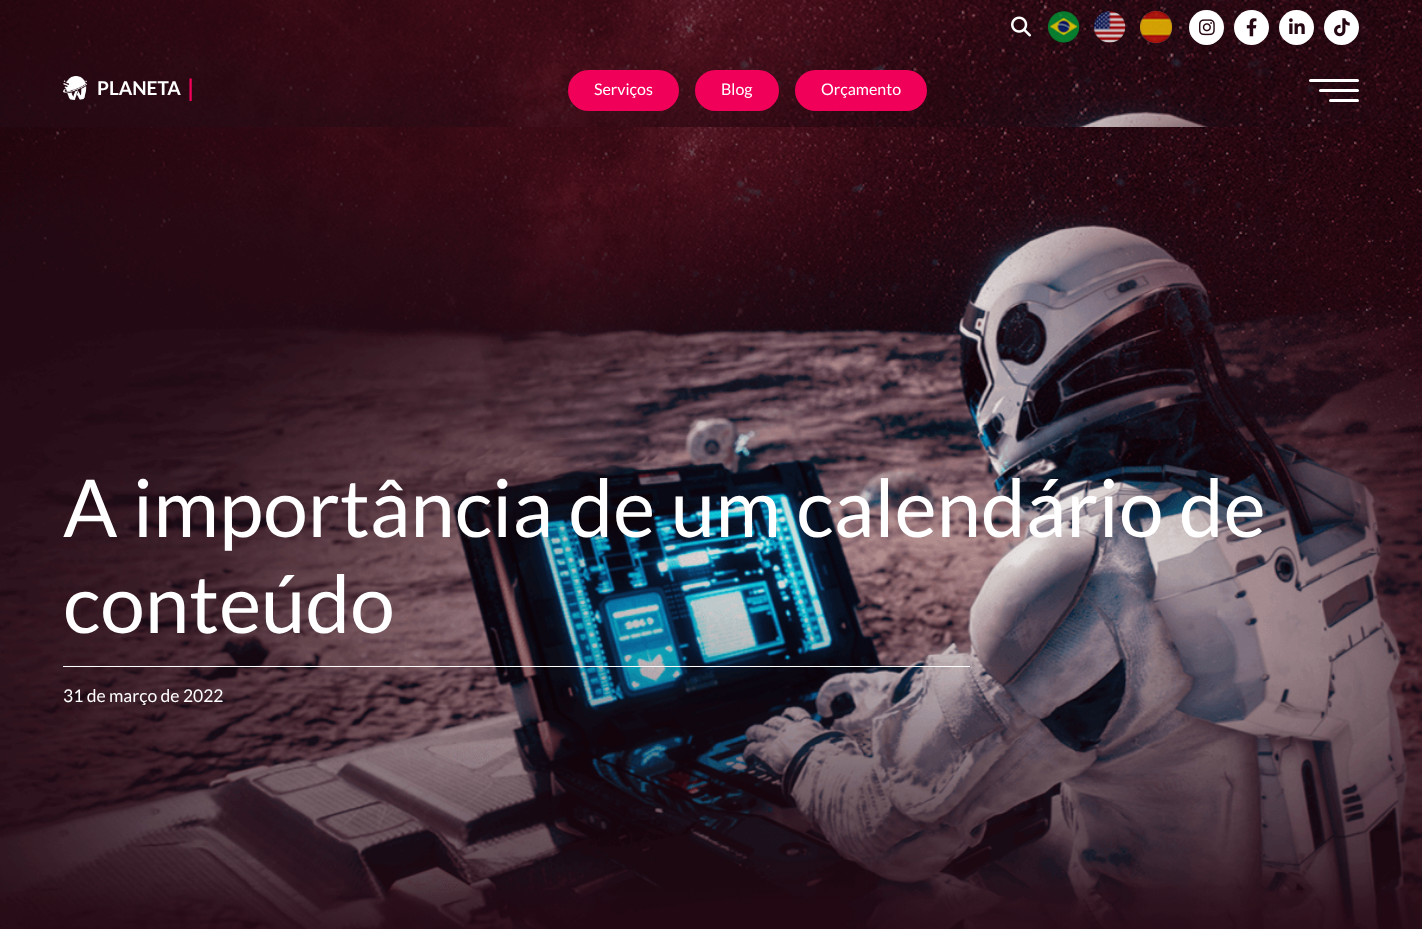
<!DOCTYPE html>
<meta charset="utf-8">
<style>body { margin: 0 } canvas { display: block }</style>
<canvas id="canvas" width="1422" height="929"></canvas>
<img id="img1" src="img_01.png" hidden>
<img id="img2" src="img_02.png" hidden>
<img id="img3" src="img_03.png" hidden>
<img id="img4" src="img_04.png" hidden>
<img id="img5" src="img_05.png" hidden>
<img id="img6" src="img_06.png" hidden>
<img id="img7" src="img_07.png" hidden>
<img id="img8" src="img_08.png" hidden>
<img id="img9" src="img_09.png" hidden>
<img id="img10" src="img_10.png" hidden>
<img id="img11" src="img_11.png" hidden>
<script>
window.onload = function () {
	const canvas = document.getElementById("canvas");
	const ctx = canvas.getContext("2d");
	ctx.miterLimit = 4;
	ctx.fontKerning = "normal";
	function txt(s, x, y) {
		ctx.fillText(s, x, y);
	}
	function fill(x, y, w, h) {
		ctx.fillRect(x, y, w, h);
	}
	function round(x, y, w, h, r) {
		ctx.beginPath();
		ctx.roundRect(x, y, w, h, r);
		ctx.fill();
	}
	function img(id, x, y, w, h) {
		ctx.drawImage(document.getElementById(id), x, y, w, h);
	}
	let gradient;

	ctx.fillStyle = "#FFFFFF";
	fill(0, 0, 1422, 929);
	img("img1", 0, 0, 1422, 127);
	img("img2", 1011, 16, 20, 21);
	img("img3", 1048, 11, 32, 32);
	img("img4", 1094, 11, 32, 32);
	img("img5", 1140, 11, 32, 32);
	ctx.beginPath();
	ctx.arc(1206.5, 27.5, 17.5, 0, Math.PI * 2);
	ctx.fill();
	img("img6", 1199, 19, 16, 17);
	ctx.beginPath();
	ctx.arc(1251.5, 27.5, 17.5, 0, Math.PI * 2);
	ctx.fill();
	img("img7", 1246, 18, 11, 19);
	ctx.beginPath();
	ctx.arc(1296.5, 27.5, 17.5, 0, Math.PI * 2);
	ctx.fill();
	img("img8", 1289, 18, 16, 16);
	ctx.beginPath();
	ctx.arc(1341.5, 27.5, 17.5, 0, Math.PI * 2);
	ctx.fill();
	img("img9", 1334, 18, 16, 19);
	img("img10", 63, 76, 24, 24);
	ctx.fillStyle = "#F10059";
	ctx.beginPath();
	ctx.roundRect(569, 71, 109, 39, 19.5);
	ctx.fill();
	ctx.strokeStyle = "#F10059";
	ctx.lineWidth = 2;
	ctx.stroke();
	ctx.beginPath();
	ctx.roundRect(696, 71, 82, 39, 19.5);
	ctx.fill();
	ctx.stroke();
	ctx.beginPath();
	ctx.roundRect(796, 71, 130, 39, 19.5);
	ctx.fill();
	ctx.stroke();
	ctx.fillStyle = "#FFFFFF";
	round(1309, 79, 50, 3, 1.5);
	round(1319, 89, 40, 3, 1.5);
	round(1329, 99, 30, 3, 1.5);
	img("img11", 0, 127, 1422, 802);
	fill(63, 666, 907, 1);
	gradient = ctx.createLinearGradient(711, 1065, 711, 127);
	gradient.addColorStop(0, "#250713");
	gradient.addColorStop(0.2, "rgba(37, 7, 19, 0)");
	ctx.fillStyle = gradient;
	fill(23, 884, 1386, 45);
	gradient = ctx.createLinearGradient(711, 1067, 711, 0);
	gradient.addColorStop(0, "#250713");
	gradient.addColorStop(0.2, "rgba(37, 7, 19, 0)");
	ctx.fillStyle = gradient;
	fill(0, 862, 1420, 67);
	ctx.font = "bold 19px Lato";
	ctx.fillStyle = "#FFFFFF";
	txt("PLANETA", 97, 95);
	ctx.font = "bold 24px Lato";
	ctx.fillStyle = "#F10059";
	txt("|", 187, 97);
	ctx.font = "16px Lato";
	ctx.fillStyle = "#FFFFFF";
	txt("Serviços", 594, 95);
	txt("Blog", 721, 95);
	txt("Orçamento", 821, 95);
	ctx.font = "80px Lato";
	txt("A importância de um calendário de", 63, 537);
	txt("conteúdo", 63, 633);
	ctx.font = "17.5px Lato";
	txt("31 de março de 2022", 63, 702);
};
</script>
